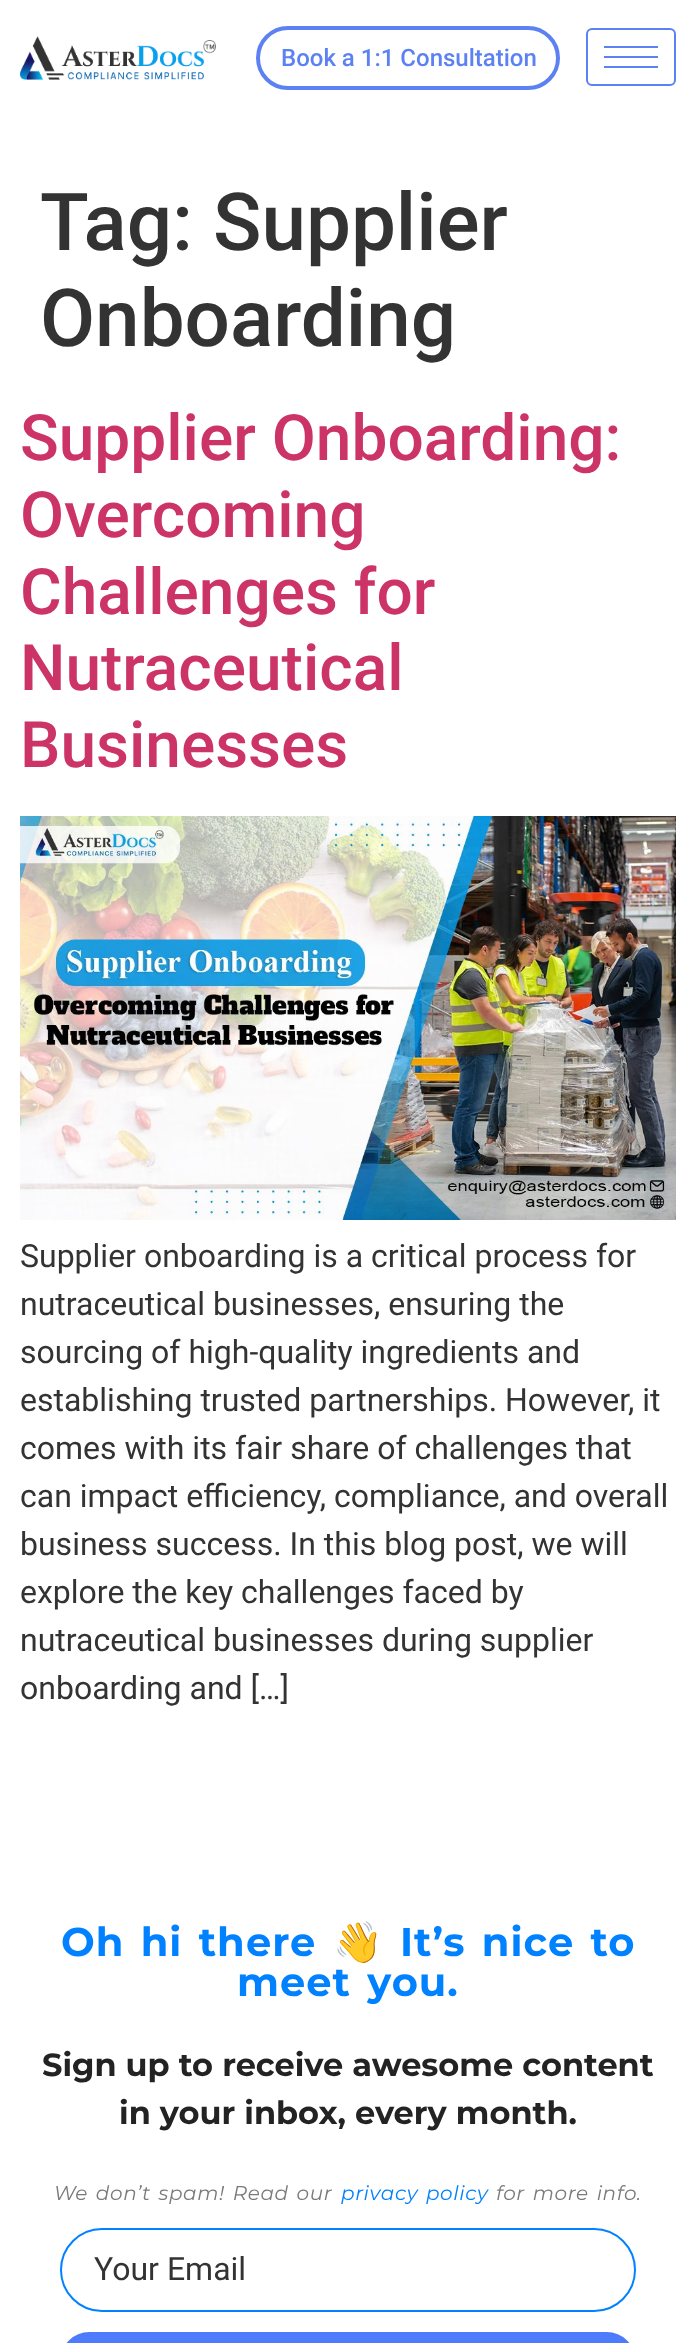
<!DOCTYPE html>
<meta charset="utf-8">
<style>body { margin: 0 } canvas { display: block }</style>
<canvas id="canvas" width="695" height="2343"></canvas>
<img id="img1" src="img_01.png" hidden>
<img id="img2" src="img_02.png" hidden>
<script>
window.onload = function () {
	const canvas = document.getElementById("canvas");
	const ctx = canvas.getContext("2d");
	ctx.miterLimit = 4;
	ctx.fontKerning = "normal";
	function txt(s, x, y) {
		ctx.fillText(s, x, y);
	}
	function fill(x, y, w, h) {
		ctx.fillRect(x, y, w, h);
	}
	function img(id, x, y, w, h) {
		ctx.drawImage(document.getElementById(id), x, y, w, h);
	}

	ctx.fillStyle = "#FFFFFF";
	fill(0, 0, 695, 2343);
	img("img1", 20, 36, 196, 44);
	ctx.beginPath();
	ctx.roundRect(258, 28, 300, 60, 30);
	ctx.strokeStyle = "#5C81F3";
	ctx.lineWidth = 4;
	ctx.stroke();
	ctx.beginPath();
	ctx.roundRect(587, 29, 88, 56, 5);
	ctx.lineWidth = 2;
	ctx.stroke();
	ctx.fillStyle = "#5C81F3";
	fill(604, 46, 54, 2);
	fill(604, 56, 54, 2);
	fill(604, 66, 54, 2);
	img("img2", 20, 816, 656, 404);
	ctx.beginPath();
	ctx.roundRect(61, 2229, 574, 82, 41);
	ctx.strokeStyle = "#0081FF";
	ctx.stroke();
	ctx.fillStyle = "#4D7BFB";
	ctx.beginPath();
	ctx.roundRect(61, 2333, 574, 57, 45);
	ctx.fill();
	ctx.strokeStyle = "#4D7BFB";
	ctx.stroke();
	ctx.font = "500 24px Roboto";
	ctx.fillStyle = "#5C81F3";
	txt("Book a 1:1 Consultation", 281, 66);
	ctx.font = "500 80px Roboto";
	ctx.fillStyle = "#333333";
	txt("Tag: Supplier", 40, 250);
	txt("Onboarding", 40, 346);
	ctx.font = "500 64px Roboto";
	ctx.fillStyle = "#CC3366";
	txt("Supplier Onboarding:", 20, 460);
	txt("Overcoming", 20, 537);
	txt("Challenges for", 20, 614);
	txt("Nutraceutical", 20, 690);
	txt("Businesses", 20, 767);
	ctx.font = "32px Roboto";
	ctx.fillStyle = "#333333";
	txt("Supplier onboarding is a critical process for", 20, 1267);
	txt("nutraceutical businesses, ensuring the", 20, 1315);
	txt("sourcing of high-quality ingredients and", 20, 1363);
	txt("establishing trusted partnerships. However, it", 20, 1411);
	txt("comes with its fair share of challenges that", 20, 1459);
	txt("can impact efficiency, compliance, and overall", 20, 1507);
	txt("business success. In this blog post, we will", 20, 1555);
	txt("explore the key challenges faced by", 20, 1603);
	txt("nutraceutical businesses during supplier", 20, 1651);
	txt("onboarding and […]", 20, 1699);
	ctx.letterSpacing = "1px";
	ctx.wordSpacing = "4px";
	ctx.font = "bold 40px Montserrat";
	ctx.fillStyle = "#0081FF";
	txt("Oh hi there", 61, 1956);
	ctx.wordSpacing = "0px";
	ctx.font = "bold 40px Noto Color Emoji";
	txt("👋", 333, 1956);
	ctx.wordSpacing = "4px";
	ctx.font = "bold 40px Montserrat";
	txt("It’s nice to", 400, 1956);
	txt("meet you.", 237, 1996);
	ctx.letterSpacing = "0px";
	ctx.wordSpacing = "0px";
	ctx.font = "bold 32px Montserrat";
	ctx.fillStyle = "#232323";
	txt("Sign up to receive awesome content", 42, 2076);
	txt("in your inbox, every month.", 119, 2124);
	ctx.letterSpacing = "0.6px";
	ctx.wordSpacing = "2px";
	ctx.font = "italic 20px Montserrat";
	ctx.fillStyle = "#7A7A7A";
	txt("We don’t spam! Read our", 54, 2200);
	ctx.fillStyle = "#0081FF";
	txt("privacy policy", 341, 2200);
	ctx.fillStyle = "#7A7A7A";
	txt("for more info.", 496, 2200);
	ctx.letterSpacing = "0px";
	ctx.wordSpacing = "0px";
	ctx.font = "32px Roboto";
	ctx.fillStyle = "#333333";
	txt("Your Email", 94, 2280);
};
</script>
